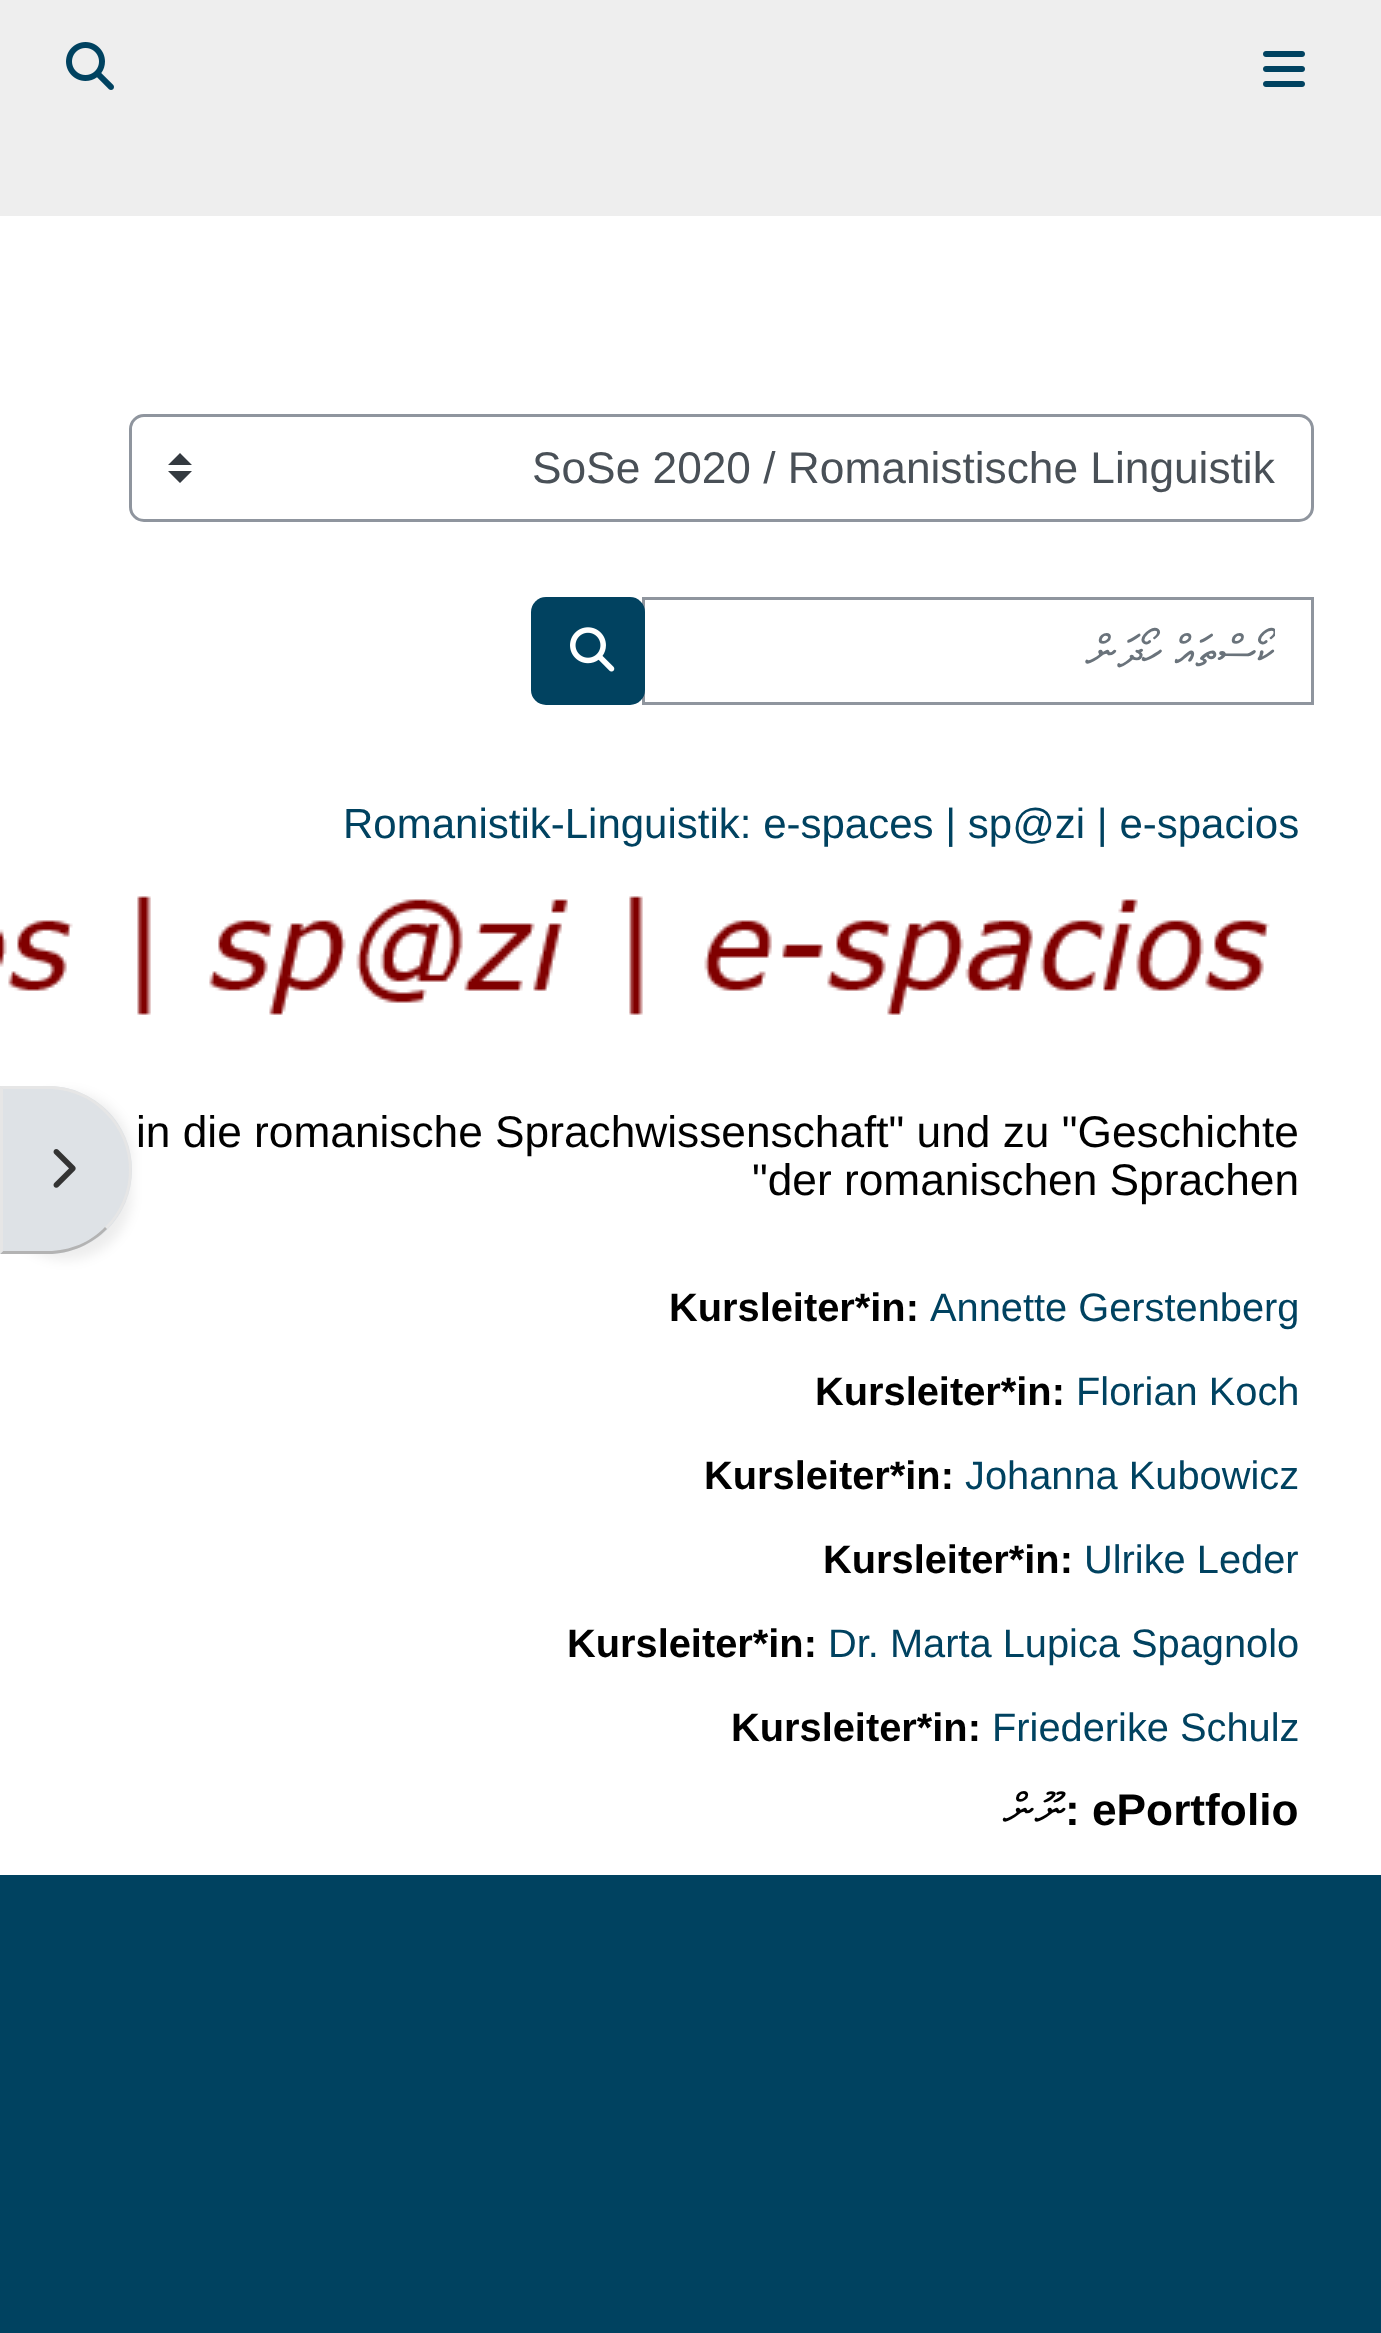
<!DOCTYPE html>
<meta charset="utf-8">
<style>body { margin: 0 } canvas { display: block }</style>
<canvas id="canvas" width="1381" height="2333"></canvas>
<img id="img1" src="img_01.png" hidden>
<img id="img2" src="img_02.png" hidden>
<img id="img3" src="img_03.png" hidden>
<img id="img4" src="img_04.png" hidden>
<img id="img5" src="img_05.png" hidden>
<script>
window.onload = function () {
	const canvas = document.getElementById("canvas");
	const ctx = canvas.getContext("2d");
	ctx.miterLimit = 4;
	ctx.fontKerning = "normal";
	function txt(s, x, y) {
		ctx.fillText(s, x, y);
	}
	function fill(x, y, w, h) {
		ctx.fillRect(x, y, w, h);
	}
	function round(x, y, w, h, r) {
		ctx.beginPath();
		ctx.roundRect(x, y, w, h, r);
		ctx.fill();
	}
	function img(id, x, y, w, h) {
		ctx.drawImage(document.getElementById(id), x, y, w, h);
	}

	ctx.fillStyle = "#004260";
	fill(0, 0, 1381, 2333);
	ctx.fillStyle = "#EEEEEE";
	fill(0, 0, 1381, 216);
	img("img1", 66, 42, 48, 48);
	img("img2", 1263, 51, 42, 36);
	ctx.fillStyle = "#FFFFFF";
	fill(0, 216, 1381, 1659);
	ctx.fillStyle = "rgba(0, 0, 0, 0.07)";
	ctx.filter = "blur(6px)";
	ctx.beginPath();
	ctx.roundRect(0, 1092, 132, 168, 84);
	ctx.fill();
	ctx.filter = "none";
	ctx.fillStyle = "#DEE2E6";
	ctx.beginPath();
	ctx.roundRect(0, 1086, 132, 168, [0, 84, 84, 0]);
	ctx.fill();
	ctx.fillStyle = "#E6E6E6";
	ctx.beginPath();
	ctx.moveTo(0, 1086);
	ctx.lineTo(3, 1089);
	ctx.lineTo(48, 1089);
	ctx.bezierCurveTo(70, 1089, 91, 1098, 105, 1113);
	ctx.lineTo(107, 1111);
	ctx.bezierCurveTo(92, 1096, 71, 1086, 48, 1086);
	ctx.closePath();
	ctx.fill();
	ctx.beginPath();
	ctx.moveTo(107, 1111);
	ctx.bezierCurveTo(140, 1144, 140, 1196, 107, 1229);
	ctx.lineTo(105, 1227);
	ctx.bezierCurveTo(137, 1196, 137, 1144, 105, 1113);
	ctx.closePath();
	ctx.fill();
	ctx.fillStyle = "#B3B3B3";
	ctx.beginPath();
	ctx.moveTo(48, 1254);
	ctx.bezierCurveTo(71, 1254, 92, 1244, 107, 1229);
	ctx.lineTo(105, 1227);
	ctx.bezierCurveTo(91, 1242, 70, 1251, 48, 1251);
	ctx.lineTo(3, 1251);
	ctx.lineTo(0, 1254);
	ctx.closePath();
	ctx.fill();
	ctx.fillStyle = "#E6E6E6";
	ctx.beginPath();
	ctx.moveTo(3, 1089);
	ctx.lineTo(0, 1086);
	ctx.lineTo(0, 1254);
	ctx.lineTo(3, 1251);
	ctx.closePath();
	ctx.fill();
	img("img3", 53, 1149, 23, 39);
	ctx.fillStyle = "#343A40";
	ctx.beginPath();
	ctx.moveTo(180, 453);
	ctx.lineTo(168, 465);
	ctx.lineTo(192, 465);
	ctx.closePath();
	ctx.moveTo(180, 483);
	ctx.lineTo(168, 471);
	ctx.lineTo(192, 471);
	ctx.closePath();
	ctx.fill();
	ctx.beginPath();
	ctx.roundRect(130.5, 415.5, 1182, 105, 13.5);
	ctx.strokeStyle = "#8F959E";
	ctx.lineWidth = 3;
	ctx.stroke();
	ctx.strokeRect(643.5, 598.5, 669, 105);
	ctx.fillStyle = "#014260";
	round(531, 597, 114, 108, 15);
	img("img4", 570, 627, 45, 45);
	img("img5", 0, 896, 1270, 119);
	ctx.font = "44.25px Liberation Sans";
	ctx.fillStyle = "#495057";
	txt("SoSe 2020 / Romanistische Linguistik", 532, 483);
	ctx.save();
	ctx.beginPath();
	ctx.rect(681, 627, 594, 51);
	ctx.clip();
	ctx.wordSpacing = "1px";
	ctx.direction = "rtl";
	ctx.font = "44.25px FreeSerif";
	ctx.fillStyle = "#6A737B";
	txt("ކޯސްތައް ހޯދަން", 1275, 667);
	ctx.restore();
	ctx.font = "42px Liberation Sans";
	ctx.fillStyle = "#004260";
	txt("Romanistik-Linguistik: e-spaces | sp@zi | e-spacios", 343, 838);
	ctx.font = "44.25px Liberation Sans";
	ctx.fillStyle = "#000000";
	txt("in die romanische Sprachwissenschaft\" und zu \"Geschichte", 136, 1147);
	txt("\"der romanischen Sprachen", 752, 1195);
	ctx.font = "bold 39.8px Liberation Sans";
	txt("Kursleiter*in:", 669, 1321);
	ctx.font = "39.8px Liberation Sans";
	ctx.fillStyle = "#004260";
	txt("Annette Gerstenberg", 930, 1321);
	ctx.font = "bold 39.8px Liberation Sans";
	ctx.fillStyle = "#000000";
	txt("Kursleiter*in:", 815, 1405);
	ctx.font = "39.8px Liberation Sans";
	ctx.fillStyle = "#004260";
	txt("Florian Koch", 1076, 1405);
	ctx.font = "bold 39.8px Liberation Sans";
	ctx.fillStyle = "#000000";
	txt("Kursleiter*in:", 704, 1489);
	ctx.font = "39.8px Liberation Sans";
	ctx.fillStyle = "#004260";
	txt("Johanna Kubowicz", 965, 1489);
	ctx.font = "bold 39.8px Liberation Sans";
	ctx.fillStyle = "#000000";
	txt("Kursleiter*in:", 823, 1573);
	ctx.font = "39.8px Liberation Sans";
	ctx.fillStyle = "#004260";
	txt("Ulrike Leder", 1084, 1573);
	ctx.font = "bold 39.8px Liberation Sans";
	ctx.fillStyle = "#000000";
	txt("Kursleiter*in:", 567, 1657);
	ctx.font = "39.8px Liberation Sans";
	ctx.fillStyle = "#004260";
	txt("Dr. Marta Lupica Spagnolo", 828, 1657);
	ctx.font = "bold 39.8px Liberation Sans";
	ctx.fillStyle = "#000000";
	txt("Kursleiter*in:", 731, 1741);
	ctx.font = "39.8px Liberation Sans";
	ctx.fillStyle = "#004260";
	txt("Friederike Schulz", 992, 1741);
	ctx.direction = "rtl";
	ctx.font = "44.25px FreeSerif";
	ctx.fillStyle = "#000000";
	txt("ނޫން", 1065, 1825);
	ctx.direction = "ltr";
	ctx.font = "bold 44.25px Liberation Sans";
	txt(":", 1065, 1825);
	txt("ePortfolio", 1092, 1825);
};
</script>
